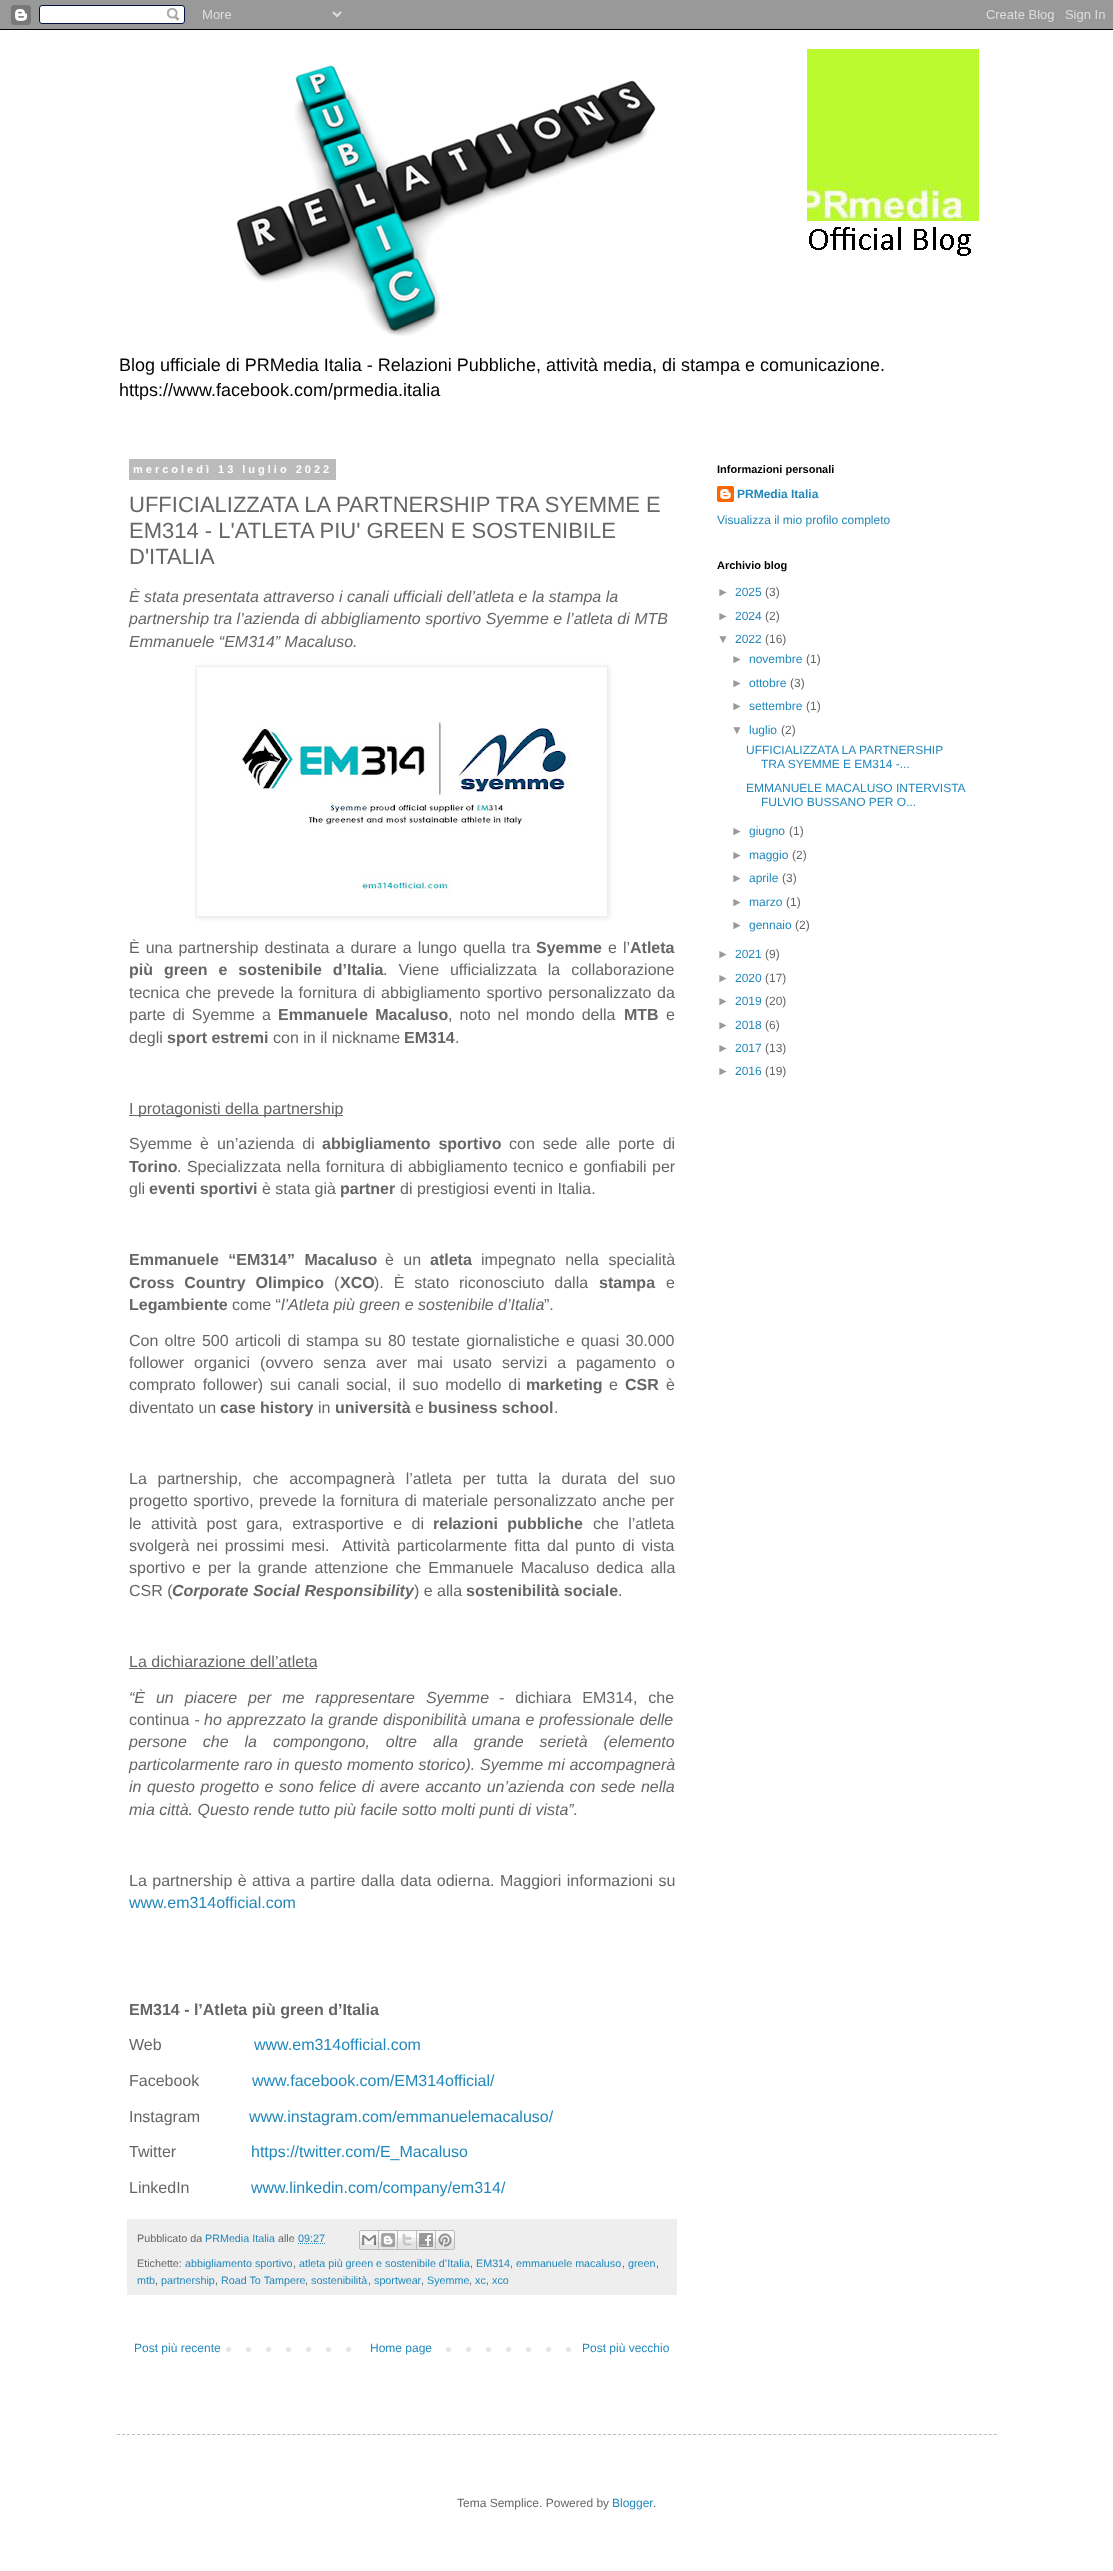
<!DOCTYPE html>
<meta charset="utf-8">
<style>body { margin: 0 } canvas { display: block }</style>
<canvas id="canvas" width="1113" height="2571"></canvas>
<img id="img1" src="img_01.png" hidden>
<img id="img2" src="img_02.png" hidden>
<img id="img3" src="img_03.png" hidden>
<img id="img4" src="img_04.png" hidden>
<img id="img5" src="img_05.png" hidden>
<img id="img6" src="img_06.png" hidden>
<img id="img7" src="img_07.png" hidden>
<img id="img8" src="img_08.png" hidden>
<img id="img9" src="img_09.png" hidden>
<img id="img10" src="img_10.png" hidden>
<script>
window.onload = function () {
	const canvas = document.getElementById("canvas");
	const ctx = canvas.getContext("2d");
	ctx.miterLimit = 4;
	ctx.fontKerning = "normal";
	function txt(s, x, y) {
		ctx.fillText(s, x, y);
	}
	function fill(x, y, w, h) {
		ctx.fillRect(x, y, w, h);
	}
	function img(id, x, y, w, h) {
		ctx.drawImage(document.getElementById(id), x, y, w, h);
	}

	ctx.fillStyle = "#FFFFFF";
	fill(0, 0, 1113, 2571);
	img("img1", 0, 0, 1113, 30);
	img("img2", 236, 49, 743, 287);
	ctx.fillStyle = "#BBBBBB";
	fill(129, 459, 207, 21);
	ctx.save();
	ctx.beginPath();
	ctx.moveTo(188, 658);
	ctx.lineTo(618, 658);
	ctx.lineTo(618, 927);
	ctx.lineTo(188, 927);
	ctx.closePath();
	ctx.moveTo(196, 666);
	ctx.lineTo(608, 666);
	ctx.lineTo(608, 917);
	ctx.lineTo(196, 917);
	ctx.closePath();
	ctx.clip("evenodd");
	ctx.fillStyle = "rgba(0, 0, 0, 0.1)";
	ctx.filter = "blur(2.5px)";
	ctx.beginPath();
	ctx.rect(197, 667, 412, 251);
	ctx.fill();
	ctx.filter = "none";
	ctx.restore();
	ctx.strokeStyle = "#EEEEEE";
	ctx.strokeRect(196.5, 666.5, 411, 250);
	img("img3", 242, 722, 328, 174);
	ctx.fillStyle = "#666666";
	fill(129, 1115, 214, 1);
	fill(129, 1668, 188, 1);
	ctx.fillStyle = "#EEEEEE";
	fill(127, 2219, 550, 76);
	ctx.beginPath();
	ctx.moveTo(298, 2243.5);
	ctx.lineTo(325, 2243.5);
	ctx.strokeStyle = "#2288BB";
	ctx.setLineDash([1, 1]);
	ctx.stroke();
	img("img4", 359, 2230, 20, 20);
	img("img5", 379, 2230, 19, 20);
	img("img6", 398, 2230, 19, 20);
	img("img7", 417, 2230, 19, 20);
	img("img8", 436, 2230, 19, 20);
	img("img9", 226, 2347, 345, 5);
	ctx.fillStyle = "#FFFFFF";
	fill(366, 2347, 66, 5);
	img("img10", 717, 486, 17, 16);
	ctx.beginPath();
	ctx.moveTo(117, 2434.5);
	ctx.lineTo(997, 2434.5);
	ctx.strokeStyle = "#BBBBBB";
	ctx.setLineDash([3, 2.01]);
	ctx.stroke();
	ctx.font = "18px Liberation Sans";
	ctx.fillStyle = "#000000";
	txt("Blog ufficiale di PRMedia Italia - Relazioni Pubbliche, attività media, di stampa e comunicazione.", 119, 371);
	txt("https://www.facebook.com/prmedia.italia", 119, 396);
	ctx.letterSpacing = "3px";
	ctx.font = "bold 11px Liberation Sans";
	ctx.fillStyle = "#FFFFFF";
	txt("mercoledì 13 luglio 2022", 133, 473);
	ctx.letterSpacing = "0px";
	ctx.font = "22px Liberation Sans";
	ctx.fillStyle = "#666666";
	txt("UFFICIALIZZATA LA PARTNERSHIP TRA SYEMME E", 129, 512);
	txt("EM314 - L'ATLETA PIU' GREEN E SOSTENIBILE", 129, 538);
	txt("D'ITALIA", 129, 564);
	ctx.font = "italic 16px Liberation Sans";
	txt("È stata presentata attraverso i canali ufficiali dell’atleta e la stampa la", 129, 602);
	txt("partnership tra l’azienda di abbigliamento sportivo Syemme e l’atleta di MTB", 129, 624);
	txt("Emmanuele “EM314” Macaluso.", 129, 647);
	ctx.wordSpacing = "1.6px";
	ctx.font = "16px Liberation Sans";
	txt("È una partnership destinata a durare a lungo quella tra", 129, 953);
	ctx.wordSpacing = "0px";
	ctx.font = "bold 16px Liberation Sans";
	txt("Syemme", 536, 953);
	ctx.wordSpacing = "1.6px";
	ctx.font = "16px Liberation Sans";
	txt("e l’", 608, 953);
	ctx.wordSpacing = "0px";
	ctx.font = "bold 16px Liberation Sans";
	txt("Atleta", 630, 953);
	ctx.wordSpacing = "6.5px";
	txt("più green e sostenibile d’Italia", 129, 975);
	ctx.font = "16px Liberation Sans";
	txt(". Viene ufficializzata la collaborazione", 383, 975);
	ctx.wordSpacing = "1.25px";
	txt("tecnica che prevede la fornitura di abbigliamento sportivo personalizzato da", 129, 998);
	ctx.wordSpacing = "2.5px";
	txt("parte di Syemme a", 129, 1020);
	ctx.wordSpacing = "3px";
	ctx.font = "bold 16px Liberation Sans";
	txt("Emmanuele Macaluso", 278, 1020);
	ctx.wordSpacing = "2.5px";
	ctx.font = "16px Liberation Sans";
	txt(", noto nel mondo della", 448, 1020);
	ctx.wordSpacing = "0px";
	ctx.font = "bold 16px Liberation Sans";
	txt("MTB", 624, 1020);
	ctx.font = "16px Liberation Sans";
	txt("e", 666, 1020);
	txt("degli", 129, 1043);
	ctx.font = "bold 16px Liberation Sans";
	txt("sport estremi", 167, 1043);
	ctx.font = "16px Liberation Sans";
	txt("con in il nickname", 273, 1043);
	ctx.font = "bold 16px Liberation Sans";
	txt("EM314", 404, 1043);
	ctx.font = "16px Liberation Sans";
	txt(".", 455, 1043);
	txt("I protagonisti della partnership", 129, 1114);
	ctx.wordSpacing = "3.5px";
	txt("Syemme è un’azienda di", 129, 1149);
	ctx.font = "bold 16px Liberation Sans";
	txt("abbigliamento sportivo", 322, 1149);
	ctx.font = "16px Liberation Sans";
	txt("con sede alle porte di", 509, 1149);
	ctx.wordSpacing = "0px";
	ctx.font = "bold 16px Liberation Sans";
	txt("Torino", 129, 1172);
	ctx.wordSpacing = "1px";
	ctx.font = "16px Liberation Sans";
	txt(". Specializzata nella fornitura di abbigliamento tecnico e gonfiabili per", 177, 1172);
	ctx.wordSpacing = "0px";
	txt("gli", 129, 1194);
	ctx.font = "bold 16px Liberation Sans";
	txt("eventi sportivi", 149, 1194);
	ctx.font = "16px Liberation Sans";
	txt("è stata già", 262, 1194);
	ctx.font = "bold 16px Liberation Sans";
	txt("partner", 340, 1194);
	ctx.font = "16px Liberation Sans";
	txt("di prestigiosi eventi in Italia.", 400, 1194);
	ctx.wordSpacing = "5px";
	ctx.font = "bold 16px Liberation Sans";
	txt("Emmanuele “EM314” Macaluso", 129, 1265);
	ctx.font = "16px Liberation Sans";
	txt("è un", 385, 1265);
	ctx.wordSpacing = "0px";
	ctx.font = "bold 16px Liberation Sans";
	txt("atleta", 430, 1265);
	ctx.wordSpacing = "5px";
	ctx.font = "16px Liberation Sans";
	txt("impegnato nella specialità", 481, 1265);
	ctx.wordSpacing = "5.5px";
	ctx.font = "bold 16px Liberation Sans";
	txt("Cross Country Olimpico", 129, 1288);
	ctx.wordSpacing = "0px";
	ctx.font = "16px Liberation Sans";
	txt("(", 334, 1288);
	ctx.font = "bold 16px Liberation Sans";
	txt("XCO", 340, 1288);
	ctx.wordSpacing = "5.5px";
	ctx.font = "16px Liberation Sans";
	txt("). È stato riconosciuto dalla", 374, 1288);
	ctx.wordSpacing = "0px";
	ctx.font = "bold 16px Liberation Sans";
	txt("stampa", 599, 1288);
	ctx.font = "16px Liberation Sans";
	txt("e", 666, 1288);
	ctx.font = "bold 16px Liberation Sans";
	txt("Legambiente", 129, 1310);
	ctx.font = "16px Liberation Sans";
	txt("come “", 232, 1310);
	ctx.font = "italic 16px Liberation Sans";
	txt("l’Atleta più green e sostenibile d’Italia", 281, 1310);
	ctx.font = "16px Liberation Sans";
	txt("”.", 544, 1310);
	ctx.wordSpacing = "1.8px";
	txt("Con oltre 500 articoli di stampa su 80 testate giornalistiche e quasi 30.000", 129, 1346);
	ctx.wordSpacing = "5.5px";
	txt("follower organici (ovvero senza aver mai usato servizi a pagamento o", 129, 1368);
	ctx.wordSpacing = "2.5px";
	txt("comprato follower) sui canali social, il suo modello di", 129, 1390);
	ctx.wordSpacing = "0px";
	ctx.font = "bold 16px Liberation Sans";
	txt("marketing", 526, 1390);
	ctx.font = "16px Liberation Sans";
	txt("e", 609, 1390);
	ctx.font = "bold 16px Liberation Sans";
	txt("CSR", 625, 1390);
	ctx.font = "16px Liberation Sans";
	txt("è", 666, 1390);
	txt("diventato un", 129, 1413);
	ctx.font = "bold 16px Liberation Sans";
	txt("case history", 220, 1413);
	ctx.font = "16px Liberation Sans";
	txt("in", 318, 1413);
	ctx.font = "bold 16px Liberation Sans";
	txt("università", 335, 1413);
	ctx.font = "16px Liberation Sans";
	txt("e", 415, 1413);
	ctx.font = "bold 16px Liberation Sans";
	txt("business school", 428, 1413);
	ctx.font = "16px Liberation Sans";
	txt(".", 554, 1413);
	ctx.wordSpacing = "6.25px";
	txt("La partnership, che accompagnerà l’atleta per tutta la durata del suo", 129, 1484);
	ctx.wordSpacing = "1px";
	txt("progetto sportivo, prevede la fornitura di materiale personalizzato anche per", 129, 1506);
	ctx.wordSpacing = "5px";
	txt("le attività post gara, extrasportive e di", 129, 1529);
	ctx.font = "bold 16px Liberation Sans";
	txt("relazioni pubbliche", 433, 1529);
	ctx.font = "16px Liberation Sans";
	txt("che l’atleta", 593, 1529);
	ctx.wordSpacing = "2.5px";
	txt("svolgerà nei prossimi mesi.", 129, 1551);
	txt("Attività particolarmente fitta dal punto di vista", 342, 1551);
	ctx.wordSpacing = "2.6px";
	txt("sportivo e per la grande attenzione che Emmanuele Macaluso dedica alla", 129, 1573);
	ctx.wordSpacing = "0px";
	txt("CSR (", 129, 1596);
	ctx.font = "italic bold 16px Liberation Sans";
	txt("Corporate Social Responsibility", 172, 1596);
	ctx.font = "16px Liberation Sans";
	txt(") e alla", 414, 1596);
	ctx.font = "bold 16px Liberation Sans";
	txt("sostenibilità sociale", 466, 1596);
	ctx.font = "16px Liberation Sans";
	txt(".", 618, 1596);
	txt("La dichiarazione dell’atleta", 129, 1667);
	ctx.wordSpacing = "6.5px";
	ctx.font = "italic 16px Liberation Sans";
	txt("“È un piacere per me rappresentare Syemme", 129, 1703);
	ctx.font = "16px Liberation Sans";
	txt("- dichiara EM314, che", 499, 1703);
	ctx.wordSpacing = "0.5px";
	txt("continua -", 129, 1725);
	ctx.font = "italic 16px Liberation Sans";
	txt("ho apprezzato la grande disponibilità umana e professionale delle", 204, 1725);
	ctx.wordSpacing = "11.5px";
	txt("persone che la compongono, oltre alla grande serietà (elemento", 129, 1747);
	ctx.wordSpacing = "0.25px";
	txt("particolarmente raro in questo momento storico). Syemme mi accompagnerà", 129, 1770);
	ctx.wordSpacing = "1px";
	txt("in questo progetto e sono felice di avere accanto un’azienda con sede nella", 129, 1792);
	ctx.wordSpacing = "0px";
	txt("mia città. Questo rende tutto più facile sotto molti punti di vista”.", 129, 1815);
	ctx.wordSpacing = "1px";
	ctx.font = "16px Liberation Sans";
	txt("La partnership è attiva a partire dalla data odierna. Maggiori informazioni su", 129, 1886);
	ctx.wordSpacing = "0px";
	ctx.fillStyle = "#2288BB";
	txt("www.em314official.com", 129, 1908);
	ctx.font = "bold 16px Liberation Sans";
	ctx.fillStyle = "#666666";
	txt("EM314 - l’Atleta più green d’Italia", 129, 2015);
	ctx.font = "16px Liberation Sans";
	txt("Web", 129, 2050);
	ctx.fillStyle = "#2288BB";
	txt("www.em314official.com", 254, 2050);
	ctx.fillStyle = "#666666";
	txt("Facebook", 129, 2086);
	ctx.fillStyle = "#2288BB";
	txt("www.facebook.com/EM314official/", 252, 2086);
	ctx.fillStyle = "#666666";
	txt("Instagram", 129, 2122);
	ctx.fillStyle = "#2288BB";
	txt("www.instagram.com/emmanuelemacaluso/", 249, 2122);
	ctx.fillStyle = "#666666";
	txt("Twitter", 129, 2157);
	ctx.fillStyle = "#2288BB";
	txt("https://twitter.com/E_Macaluso", 251, 2157);
	ctx.fillStyle = "#666666";
	txt("LinkedIn", 129, 2193);
	ctx.fillStyle = "#2288BB";
	txt("www.linkedin.com/company/em314/", 251, 2193);
	ctx.font = "10.75px Liberation Sans";
	ctx.fillStyle = "#666666";
	txt("Pubblicato da", 137, 2242);
	ctx.fillStyle = "#2288BB";
	txt("PRMedia Italia", 205, 2242);
	ctx.fillStyle = "#666666";
	txt("alle", 278, 2242);
	ctx.fillStyle = "#2288BB";
	txt("09:27", 298, 2242);
	ctx.fillStyle = "#666666";
	txt("Etichette:", 137, 2267);
	ctx.fillStyle = "#2288BB";
	txt("abbigliamento sportivo", 185, 2267);
	ctx.fillStyle = "#666666";
	txt(",", 293, 2267);
	ctx.fillStyle = "#2288BB";
	txt("atleta più green e sostenibile d’Italia", 299, 2267);
	ctx.fillStyle = "#666666";
	txt(",", 470, 2267);
	ctx.fillStyle = "#2288BB";
	txt("EM314", 476, 2267);
	ctx.fillStyle = "#666666";
	txt(",", 510, 2267);
	ctx.fillStyle = "#2288BB";
	txt("emmanuele macaluso", 516, 2267);
	ctx.fillStyle = "#666666";
	txt(",", 622, 2267);
	ctx.fillStyle = "#2288BB";
	txt("green", 628, 2267);
	ctx.fillStyle = "#666666";
	txt(",", 656, 2267);
	ctx.fillStyle = "#2288BB";
	txt("mtb", 137, 2284);
	ctx.fillStyle = "#666666";
	txt(",", 155, 2284);
	ctx.fillStyle = "#2288BB";
	txt("partnership", 161, 2284);
	ctx.fillStyle = "#666666";
	txt(",", 215, 2284);
	ctx.fillStyle = "#2288BB";
	txt("Road To Tampere", 221, 2284);
	ctx.fillStyle = "#666666";
	txt(",", 305, 2284);
	ctx.fillStyle = "#2288BB";
	txt("sostenibilità", 311, 2284);
	ctx.fillStyle = "#666666";
	txt(",", 368, 2284);
	ctx.fillStyle = "#2288BB";
	txt("sportwear", 374, 2284);
	txt("Syemme", 427, 2284);
	txt("xc", 475, 2284);
	txt("xco", 492, 2284);
	ctx.fillStyle = "#666666";
	txt(",", 421, 2284);
	txt(",", 469, 2284);
	txt(",", 486, 2284);
	ctx.font = "12px Liberation Sans";
	ctx.fillStyle = "#2288BB";
	txt("Post più recente", 134, 2352);
	txt("Home page", 370, 2352);
	txt("Post più vecchio", 582, 2352);
	ctx.font = "bold 11px Liberation Sans";
	ctx.fillStyle = "#000000";
	txt("Informazioni personali", 717, 473);
	ctx.font = "bold 12px Liberation Sans";
	ctx.fillStyle = "#2288BB";
	txt("PRMedia Italia", 737, 498);
	ctx.font = "12px Liberation Sans";
	txt("Visualizza il mio profilo completo", 717, 524);
	ctx.font = "bold 11px Liberation Sans";
	ctx.fillStyle = "#000000";
	txt("Archivio blog", 717, 569);
	ctx.font = "12px Liberation Sans";
	ctx.fillStyle = "#999999";
	txt("►", 717, 596);
	ctx.fillStyle = "#2288BB";
	txt("2025", 735, 596);
	ctx.fillStyle = "#666666";
	txt("(3)", 765, 596);
	ctx.fillStyle = "#999999";
	txt("►", 717, 620);
	ctx.fillStyle = "#2288BB";
	txt("2024", 735, 620);
	ctx.fillStyle = "#666666";
	txt("(2)", 765, 620);
	ctx.fillStyle = "#999999";
	txt("▼", 717, 643);
	ctx.fillStyle = "#2288BB";
	txt("2022", 735, 643);
	ctx.fillStyle = "#666666";
	txt("(16)", 765, 643);
	ctx.fillStyle = "#999999";
	txt("►", 731, 663);
	ctx.fillStyle = "#2288BB";
	txt("novembre", 749, 663);
	ctx.fillStyle = "#666666";
	txt("(1)", 806, 663);
	ctx.fillStyle = "#999999";
	txt("►", 731, 687);
	ctx.fillStyle = "#2288BB";
	txt("ottobre", 749, 687);
	ctx.fillStyle = "#666666";
	txt("(3)", 790, 687);
	ctx.fillStyle = "#999999";
	txt("►", 731, 710);
	ctx.fillStyle = "#2288BB";
	txt("settembre", 749, 710);
	ctx.fillStyle = "#666666";
	txt("(1)", 806, 710);
	ctx.fillStyle = "#999999";
	txt("▼", 731, 734);
	ctx.fillStyle = "#2288BB";
	txt("luglio", 749, 734);
	ctx.fillStyle = "#666666";
	txt("(2)", 781, 734);
	ctx.fillStyle = "#2288BB";
	txt("UFFICIALIZZATA LA PARTNERSHIP", 746, 754);
	txt("TRA SYEMME E EM314 -...", 761, 768);
	txt("EMMANUELE MACALUSO INTERVISTA", 746, 792);
	txt("FULVIO BUSSANO PER O...", 761, 806);
	ctx.fillStyle = "#999999";
	txt("►", 731, 835);
	ctx.fillStyle = "#2288BB";
	txt("giugno", 749, 835);
	ctx.fillStyle = "#666666";
	txt("(1)", 789, 835);
	ctx.fillStyle = "#999999";
	txt("►", 731, 859);
	ctx.fillStyle = "#2288BB";
	txt("maggio", 749, 859);
	ctx.fillStyle = "#666666";
	txt("(2)", 792, 859);
	ctx.fillStyle = "#999999";
	txt("►", 731, 882);
	ctx.fillStyle = "#2288BB";
	txt("aprile", 749, 882);
	ctx.fillStyle = "#666666";
	txt("(3)", 782, 882);
	ctx.fillStyle = "#999999";
	txt("►", 731, 906);
	ctx.fillStyle = "#2288BB";
	txt("marzo", 749, 906);
	ctx.fillStyle = "#666666";
	txt("(1)", 786, 906);
	ctx.fillStyle = "#999999";
	txt("►", 731, 929);
	ctx.fillStyle = "#2288BB";
	txt("gennaio", 749, 929);
	ctx.fillStyle = "#666666";
	txt("(2)", 795, 929);
	ctx.fillStyle = "#999999";
	txt("►", 717, 958);
	ctx.fillStyle = "#2288BB";
	txt("2021", 735, 958);
	ctx.fillStyle = "#666666";
	txt("(9)", 765, 958);
	ctx.fillStyle = "#999999";
	txt("►", 717, 982);
	ctx.fillStyle = "#2288BB";
	txt("2020", 735, 982);
	ctx.fillStyle = "#666666";
	txt("(17)", 765, 982);
	ctx.fillStyle = "#999999";
	txt("►", 717, 1005);
	ctx.fillStyle = "#2288BB";
	txt("2019", 735, 1005);
	ctx.fillStyle = "#666666";
	txt("(20)", 765, 1005);
	ctx.fillStyle = "#999999";
	txt("►", 717, 1029);
	ctx.fillStyle = "#2288BB";
	txt("2018", 735, 1029);
	ctx.fillStyle = "#666666";
	txt("(6)", 765, 1029);
	ctx.fillStyle = "#999999";
	txt("►", 717, 1052);
	ctx.fillStyle = "#2288BB";
	txt("2017", 735, 1052);
	ctx.fillStyle = "#666666";
	txt("(13)", 765, 1052);
	ctx.fillStyle = "#999999";
	txt("►", 717, 1075);
	ctx.fillStyle = "#2288BB";
	txt("2016", 735, 1075);
	ctx.fillStyle = "#666666";
	txt("(19)", 765, 1075);
	txt("Tema Semplice. Powered by", 457, 2507);
	ctx.fillStyle = "#2288BB";
	txt("Blogger", 612, 2507);
	ctx.fillStyle = "#666666";
	txt(".", 653, 2507);
};
</script>
